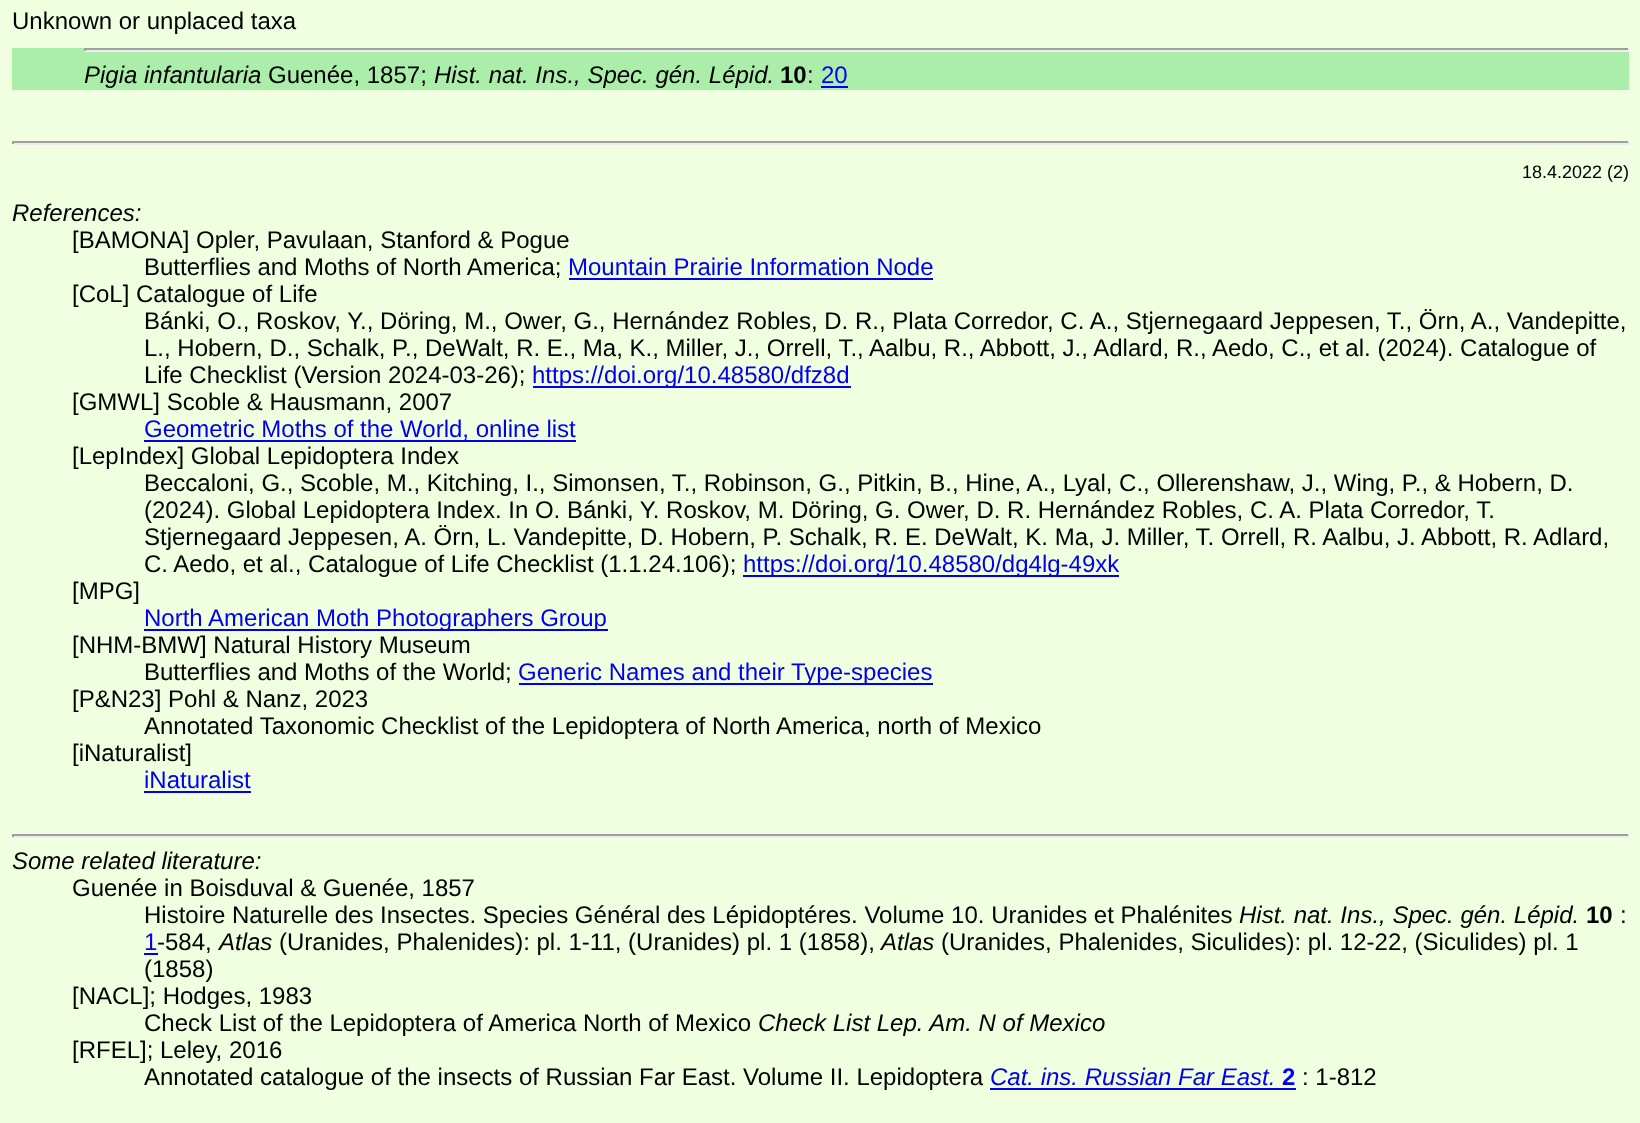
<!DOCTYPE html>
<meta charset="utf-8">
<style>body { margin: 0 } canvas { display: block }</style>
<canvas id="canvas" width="1640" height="1123"></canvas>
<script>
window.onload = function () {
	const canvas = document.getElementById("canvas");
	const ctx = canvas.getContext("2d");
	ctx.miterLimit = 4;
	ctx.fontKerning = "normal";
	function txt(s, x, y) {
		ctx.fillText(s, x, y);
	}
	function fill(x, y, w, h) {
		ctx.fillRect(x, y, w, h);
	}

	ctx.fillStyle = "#F0FFE0";
	fill(0, 0, 1640, 1123);
	ctx.fillStyle = "#AAEEAA";
	fill(12, 48, 1617, 42);
	ctx.fillStyle = "#9F9F9F";
	fill(84, 48, 1545, 2);
	ctx.fillStyle = "#EEEEEE";
	fill(1628, 48, 2, 3);
	fill(84, 50, 1545, 2);
	ctx.fillStyle = "#9F9F9F";
	fill(84, 48, 2, 3);
	ctx.fillStyle = "#0000EE";
	fill(821, 86, 27, 2);
	ctx.fillStyle = "#9F9F9F";
	fill(12, 141, 1617, 2);
	ctx.fillStyle = "#EEEEEE";
	fill(1628, 141, 2, 3);
	fill(12, 143, 1617, 2);
	ctx.fillStyle = "#9F9F9F";
	fill(12, 141, 2, 3);
	ctx.fillStyle = "#0000EE";
	fill(569, 278, 364, 2);
	fill(533, 386, 318, 2);
	fill(144, 440, 432, 2);
	fill(743, 575, 376, 2);
	fill(144, 629, 464, 2);
	fill(519, 683, 414, 2);
	fill(144, 791, 107, 2);
	ctx.fillStyle = "#9F9F9F";
	fill(12, 834, 1617, 2);
	ctx.fillStyle = "#EEEEEE";
	fill(1628, 834, 2, 3);
	fill(12, 836, 1617, 2);
	ctx.fillStyle = "#9F9F9F";
	fill(12, 834, 2, 3);
	ctx.fillStyle = "#0000EE";
	fill(144, 953, 14, 2);
	fill(990, 1088, 306, 2);
	ctx.font = "24px Liberation Sans";
	ctx.fillStyle = "#000000";
	txt("Unknown or unplaced taxa", 12, 29);
	ctx.font = "italic 24px Liberation Sans";
	txt("Pigia infantularia", 84, 83);
	ctx.font = "24px Liberation Sans";
	txt("Guenée, 1857;", 268, 83);
	ctx.font = "italic 24px Liberation Sans";
	txt("Hist. nat. Ins., Spec. gén. Lépid.", 434, 83);
	ctx.font = "bold 24px Liberation Sans";
	txt("10", 780, 83);
	ctx.font = "24px Liberation Sans";
	txt(":", 807, 83);
	ctx.fillStyle = "#0000EE";
	txt("20", 821, 83);
	ctx.font = "18px Liberation Sans";
	ctx.fillStyle = "#000000";
	txt("18.4.2022 (2)", 1522, 178);
	ctx.font = "italic 24px Liberation Sans";
	txt("References:", 12, 221);
	ctx.font = "24px Liberation Sans";
	txt("[BAMONA] Opler, Pavulaan, Stanford & Pogue", 72, 248);
	txt("Butterflies and Moths of North America;", 144, 275);
	ctx.fillStyle = "#0000EE";
	txt("Mountain Prairie Information Node", 568, 275);
	ctx.fillStyle = "#000000";
	txt("[CoL] Catalogue of Life", 72, 302);
	txt("Bánki, O., Roskov, Y., Döring, M., Ower, G., Hernández Robles, D. R., Plata Corredor, C. A., Stjernegaard Jeppesen, T., Örn, A., Vandepitte,", 144, 329);
	txt("L., Hobern, D., Schalk, P., DeWalt, R. E., Ma, K., Miller, J., Orrell, T., Aalbu, R., Abbott, J., Adlard, R., Aedo, C., et al. (2024). Catalogue of", 144, 356);
	txt("Life Checklist (Version 2024-03-26);", 144, 383);
	ctx.fillStyle = "#0000EE";
	txt("https://doi.org/10.48580/dfz8d", 532, 383);
	ctx.fillStyle = "#000000";
	txt("[GMWL] Scoble & Hausmann, 2007", 72, 410);
	ctx.fillStyle = "#0000EE";
	txt("Geometric Moths of the World, online list", 144, 437);
	ctx.fillStyle = "#000000";
	txt("[LepIndex] Global Lepidoptera Index", 72, 464);
	txt("Beccaloni, G., Scoble, M., Kitching, I., Simonsen, T., Robinson, G., Pitkin, B., Hine, A., Lyal, C., Ollerenshaw, J., Wing, P., & Hobern, D.", 144, 491);
	txt("(2024). Global Lepidoptera Index. In O. Bánki, Y. Roskov, M. Döring, G. Ower, D. R. Hernández Robles, C. A. Plata Corredor, T.", 144, 518);
	txt("Stjernegaard Jeppesen, A. Örn, L. Vandepitte, D. Hobern, P. Schalk, R. E. DeWalt, K. Ma, J. Miller, T. Orrell, R. Aalbu, J. Abbott, R. Adlard,", 144, 545);
	txt("C. Aedo, et al., Catalogue of Life Checklist (1.1.24.106);", 144, 572);
	ctx.fillStyle = "#0000EE";
	txt("https://doi.org/10.48580/dg4lg-49xk", 743, 572);
	ctx.fillStyle = "#000000";
	txt("[MPG]", 72, 599);
	ctx.fillStyle = "#0000EE";
	txt("North American Moth Photographers Group", 144, 626);
	ctx.fillStyle = "#000000";
	txt("[NHM-BMW] Natural History Museum", 72, 653);
	txt("Butterflies and Moths of the World;", 144, 680);
	ctx.fillStyle = "#0000EE";
	txt("Generic Names and their Type-species", 518, 680);
	ctx.fillStyle = "#000000";
	txt("[P&N23] Pohl & Nanz, 2023", 72, 707);
	txt("Annotated Taxonomic Checklist of the Lepidoptera of North America, north of Mexico", 144, 734);
	txt("[iNaturalist]", 72, 761);
	ctx.fillStyle = "#0000EE";
	txt("iNaturalist", 144, 788);
	ctx.font = "italic 24px Liberation Sans";
	ctx.fillStyle = "#000000";
	txt("Some related literature:", 12, 869);
	ctx.font = "24px Liberation Sans";
	txt("Guenée in Boisduval & Guenée, 1857", 72, 896);
	txt("Histoire Naturelle des Insectes. Species Général des Lépidoptéres. Volume 10. Uranides et Phalénites", 144, 923);
	ctx.font = "italic 24px Liberation Sans";
	txt("Hist. nat. Ins., Spec. gén. Lépid.", 1239, 923);
	ctx.font = "bold 24px Liberation Sans";
	txt("10", 1586, 923);
	ctx.font = "24px Liberation Sans";
	txt(":", 1620, 923);
	ctx.fillStyle = "#0000EE";
	txt("1", 144, 950);
	ctx.fillStyle = "#000000";
	txt("-584,", 157, 950);
	ctx.font = "italic 24px Liberation Sans";
	txt("Atlas", 219, 950);
	ctx.font = "24px Liberation Sans";
	txt("(Uranides, Phalenides): pl. 1-11, (Uranides) pl. 1 (1858),", 279, 950);
	ctx.font = "italic 24px Liberation Sans";
	txt("Atlas", 881, 950);
	ctx.font = "24px Liberation Sans";
	txt("(Uranides, Phalenides, Siculides): pl. 12-22, (Siculides) pl. 1", 941, 950);
	txt("(1858)", 144, 977);
	txt("[NACL]; Hodges, 1983", 72, 1004);
	txt("Check List of the Lepidoptera of America North of Mexico", 144, 1031);
	ctx.font = "italic 24px Liberation Sans";
	txt("Check List Lep. Am. N of Mexico", 758, 1031);
	ctx.font = "24px Liberation Sans";
	txt("[RFEL]; Leley, 2016", 72, 1058);
	txt("Annotated catalogue of the insects of Russian Far East. Volume II. Lepidoptera", 144, 1085);
	ctx.font = "italic 24px Liberation Sans";
	ctx.fillStyle = "#0000EE";
	txt("Cat. ins. Russian Far East.", 990, 1085);
	ctx.font = "bold 24px Liberation Sans";
	txt("2", 1282, 1085);
	ctx.font = "24px Liberation Sans";
	ctx.fillStyle = "#000000";
	txt(": 1-812", 1302, 1085);
};
</script>
